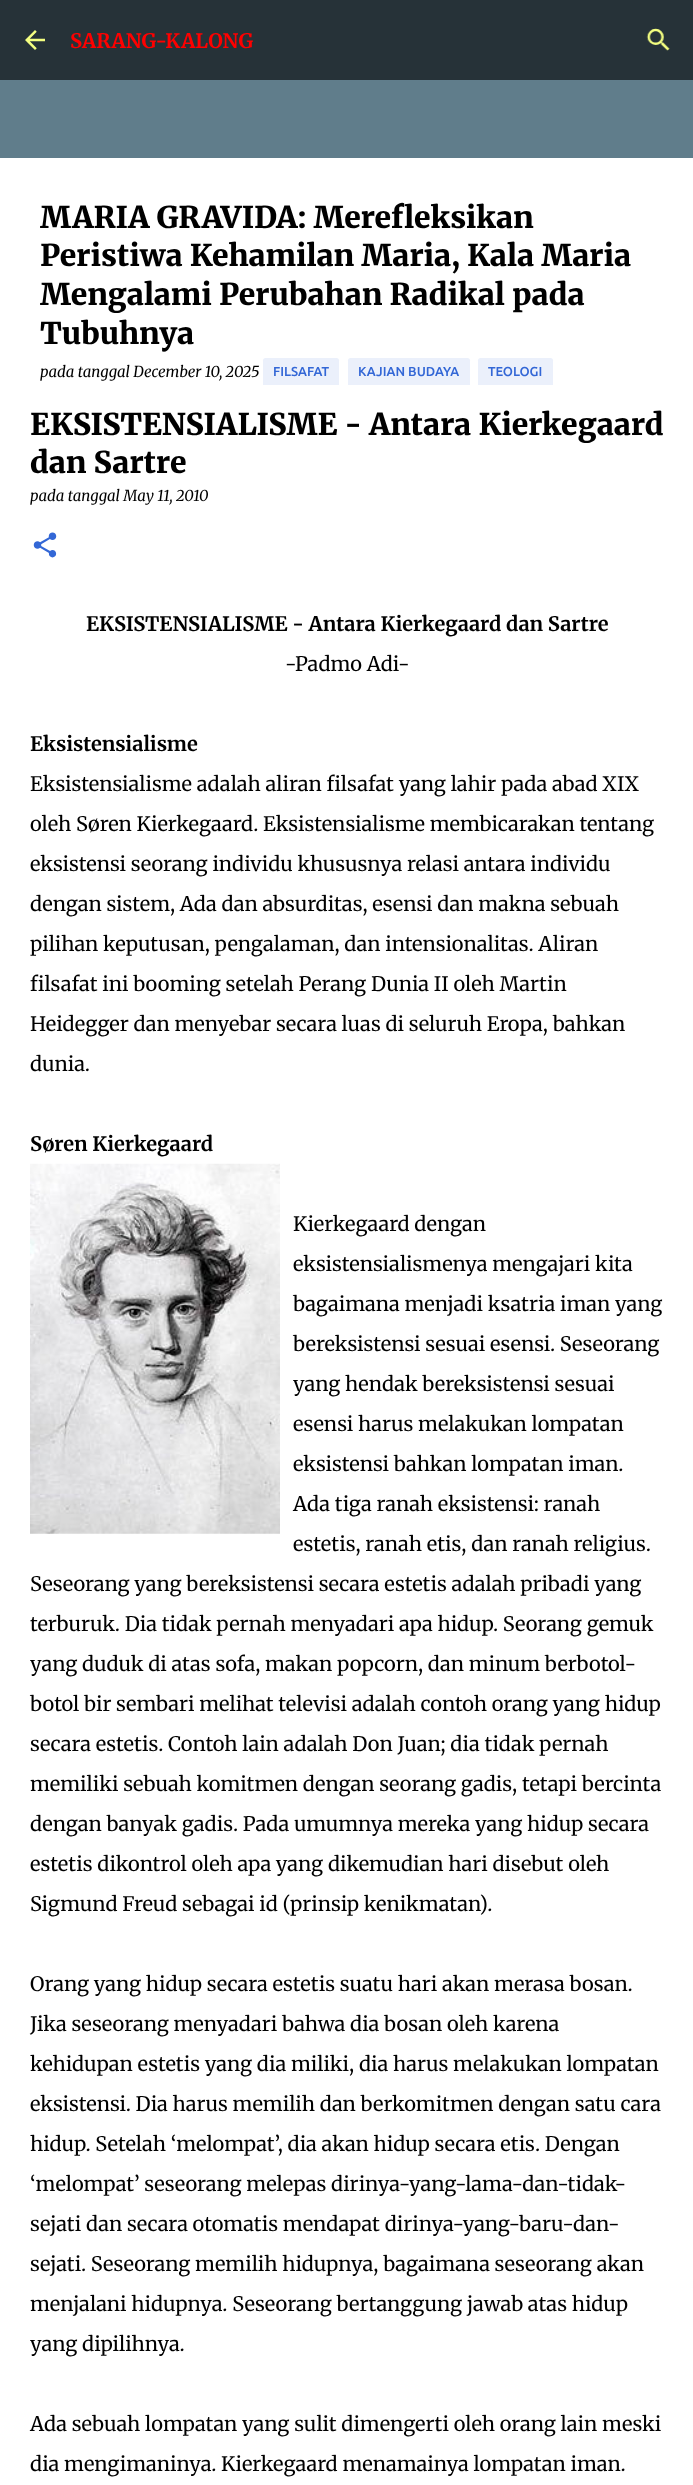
<!DOCTYPE html>
<meta charset="utf-8">
<style>body { margin: 0 } canvas { display: block }</style>
<canvas id="canvas" width="693" height="2485"></canvas>
<img id="img1" src="img_01.png" hidden>
<img id="img2" src="img_02.png" hidden>
<img id="img3" src="img_03.png" hidden>
<img id="img4" src="img_04.png" hidden>
<script>
window.onload = function () {
	const canvas = document.getElementById("canvas");
	const ctx = canvas.getContext("2d");
	ctx.miterLimit = 4;
	ctx.fontKerning = "normal";
	function txt(s, x, y) {
		ctx.fillText(s, x, y);
	}
	function fill(x, y, w, h) {
		ctx.fillRect(x, y, w, h);
	}
	function round(x, y, w, h, r) {
		ctx.beginPath();
		ctx.roundRect(x, y, w, h, r);
		ctx.fill();
	}
	function img(id, x, y, w, h) {
		ctx.drawImage(document.getElementById(id), x, y, w, h);
	}

	ctx.fillStyle = "#607D8B";
	fill(0, 0, 693, 2485);
	ctx.fillStyle = "#263238";
	fill(0, 0, 693, 80);
	img("img1", 25, 30, 20, 20);
	img("img2", 646, 28, 24, 23);
	ctx.fillStyle = "#FFFFFF";
	fill(0, 158, 693, 2327);
	ctx.fillStyle = "#EBF0FB";
	round(263, 358, 76, 30, 2.5);
	round(348, 358, 122, 30, 2.5);
	round(478, 358, 75, 30, 2.5);
	ctx.fillStyle = "#FFFFFF";
	fill(263, 385, 290, 3);
	img("img3", 33, 532, 24, 26);
	img("img4", 30, 1163, 250, 371);
	ctx.font = "bold 20px Merriweather";
	ctx.fillStyle = "#FF0000";
	txt("SARANG-KALONG", 70, 48);
	ctx.font = "900 30px Merriweather";
	ctx.fillStyle = "#000000";
	txt("MARIA GRAVIDA: Merefleksikan", 40, 228);
	txt("Peristiwa Kehamilan Maria, Kala Maria", 40, 266);
	txt("Mengalami Perubahan Radikal pada", 40, 305);
	txt("Tubuhnya", 40, 344);
	ctx.font = "italic 15px Merriweather";
	txt("pada tanggal December 10, 2025", 40, 377);
	ctx.font = "500 13px Ubuntu";
	ctx.fillStyle = "#3367D6";
	txt("FILSAFAT", 273, 376);
	txt("KAJIAN BUDAYA", 358, 376);
	txt("TEOLOGI", 488, 376);
	ctx.font = "900 30px Merriweather";
	ctx.fillStyle = "#000000";
	txt("EKSISTENSIALISME - Antara Kierkegaard", 30, 435);
	txt("dan Sartre", 30, 473);
	ctx.font = "italic 15px Merriweather";
	txt("pada tanggal May 11, 2010", 30, 501);
	ctx.font = "bold 20px Merriweather";
	txt("EKSISTENSIALISME - Antara Kierkegaard dan Sartre", 86, 631);
	ctx.font = "20px Merriweather";
	txt("-Padmo Adi-", 285, 671);
	ctx.font = "bold 20px Merriweather";
	txt("Eksistensialisme", 30, 751);
	ctx.font = "20px Merriweather";
	txt("Eksistensialisme adalah aliran filsafat yang lahir pada abad XIX", 30, 791);
	txt("oleh Søren Kierkegaard. Eksistensialisme membicarakan tentang", 30, 831);
	txt("eksistensi seorang individu khususnya relasi antara individu", 30, 871);
	txt("dengan sistem, Ada dan absurditas, esensi dan makna sebuah", 30, 911);
	txt("pilihan keputusan, pengalaman, dan intensionalitas. Aliran", 30, 951);
	txt("filsafat ini booming setelah Perang Dunia II oleh Martin", 30, 991);
	txt("Heidegger dan menyebar secara luas di seluruh Eropa, bahkan", 30, 1031);
	txt("dunia.", 30, 1071);
	ctx.font = "bold 20px Merriweather";
	txt("Søren Kierkegaard", 30, 1151);
	ctx.font = "20px Merriweather";
	txt("Kierkegaard dengan", 293, 1231);
	txt("eksistensialismenya mengajari kita", 293, 1271);
	txt("bagaimana menjadi ksatria iman yang", 293, 1311);
	txt("bereksistensi sesuai esensi. Seseorang", 293, 1351);
	txt("yang hendak bereksistensi sesuai", 293, 1391);
	txt("esensi harus melakukan lompatan", 293, 1431);
	txt("eksistensi bahkan lompatan iman.", 293, 1471);
	txt("Ada tiga ranah eksistensi: ranah", 293, 1511);
	txt("estetis, ranah etis, dan ranah religius.", 293, 1551);
	txt("Seseorang yang bereksistensi secara estetis adalah pribadi yang", 30, 1591);
	txt("terburuk. Dia tidak pernah menyadari apa hidup. Seorang gemuk", 30, 1631);
	txt("yang duduk di atas sofa, makan popcorn, dan minum berbotol-", 30, 1671);
	txt("botol bir sembari melihat televisi adalah contoh orang yang hidup", 30, 1711);
	txt("secara estetis. Contoh lain adalah Don Juan; dia tidak pernah", 30, 1751);
	txt("memiliki sebuah komitmen dengan seorang gadis, tetapi bercinta", 30, 1791);
	txt("dengan banyak gadis. Pada umumnya mereka yang hidup secara", 30, 1831);
	txt("estetis dikontrol oleh apa yang dikemudian hari disebut oleh", 30, 1871);
	txt("Sigmund Freud sebagai id (prinsip kenikmatan).", 30, 1911);
	txt("Orang yang hidup secara estetis suatu hari akan merasa bosan.", 30, 1991);
	txt("Jika seseorang menyadari bahwa dia bosan oleh karena", 30, 2031);
	txt("kehidupan estetis yang dia miliki, dia harus melakukan lompatan", 30, 2071);
	txt("eksistensi. Dia harus memilih dan berkomitmen dengan satu cara", 30, 2111);
	txt("hidup. Setelah ‘melompat’, dia akan hidup secara etis. Dengan", 30, 2151);
	txt("‘melompat’ seseorang melepas dirinya-yang-lama-dan-tidak-", 30, 2191);
	txt("sejati dan secara otomatis mendapat dirinya-yang-baru-dan-", 30, 2231);
	txt("sejati. Seseorang memilih hidupnya, bagaimana seseorang akan", 30, 2271);
	txt("menjalani hidupnya. Seseorang bertanggung jawab atas hidup", 30, 2311);
	txt("yang dipilihnya.", 30, 2351);
	txt("Ada sebuah lompatan yang sulit dimengerti oleh orang lain meski", 30, 2431);
	txt("dia mengimaninya. Kierkegaard menamainya lompatan iman.", 30, 2471);
};
</script>
